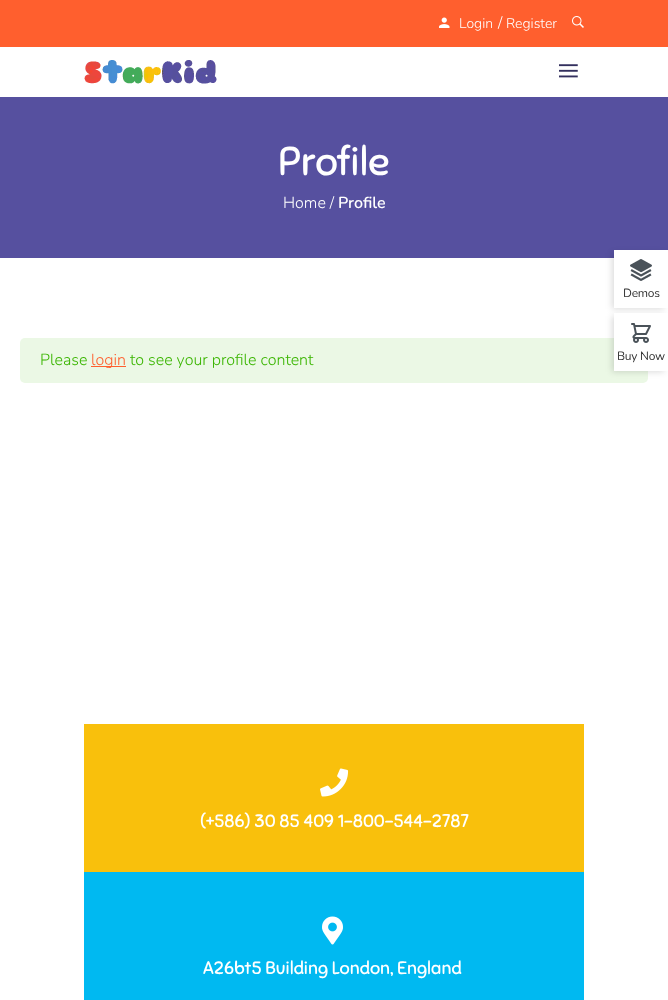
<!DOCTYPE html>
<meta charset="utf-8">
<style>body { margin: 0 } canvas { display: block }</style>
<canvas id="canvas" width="668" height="1000"></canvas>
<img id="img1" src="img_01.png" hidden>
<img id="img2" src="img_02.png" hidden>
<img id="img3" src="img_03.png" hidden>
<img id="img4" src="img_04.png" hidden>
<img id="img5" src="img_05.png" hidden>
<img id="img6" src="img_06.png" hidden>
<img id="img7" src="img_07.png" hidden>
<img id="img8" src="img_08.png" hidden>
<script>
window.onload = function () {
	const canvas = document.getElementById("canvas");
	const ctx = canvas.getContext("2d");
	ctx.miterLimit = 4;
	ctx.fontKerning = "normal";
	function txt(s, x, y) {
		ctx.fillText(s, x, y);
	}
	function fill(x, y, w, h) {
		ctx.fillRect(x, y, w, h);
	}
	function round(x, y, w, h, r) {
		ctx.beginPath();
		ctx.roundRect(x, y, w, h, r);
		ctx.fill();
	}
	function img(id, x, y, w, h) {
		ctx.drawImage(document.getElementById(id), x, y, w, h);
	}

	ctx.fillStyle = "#FFFFFF";
	fill(0, 0, 668, 1000);
	ctx.fillStyle = "#FF5F2E";
	fill(0, 0, 668, 47);
	img("img1", 439, 17, 11, 11);
	img("img2", 572, 16, 12, 12);
	img("img3", 84, 60, 133, 24);
	img("img4", 559, 64, 19, 14);
	ctx.fillStyle = "#56509F";
	fill(0, 97, 668, 161);
	ctx.fillStyle = "#EBF8E5";
	round(20, 338, 628, 45, 5);
	ctx.fillStyle = "#FF5F2E";
	fill(91, 366, 35, 1);
	ctx.fillStyle = "#F9C00C";
	fill(84, 724, 500, 148);
	img("img5", 320, 768, 29, 29);
	ctx.fillStyle = "#00B9F1";
	fill(84, 872, 500, 128);
	img("img6", 322, 916, 21, 29);
	ctx.fillStyle = "rgba(0, 0, 0, 0.14)";
	ctx.filter = "blur(3px)";
	ctx.beginPath();
	ctx.rect(612, 253, 52, 56);
	ctx.fill();
	ctx.filter = "none";
	ctx.fillStyle = "#FFFFFF";
	fill(614, 250, 54, 58);
	img("img7", 630, 259, 22, 22);
	ctx.fillStyle = "rgba(0, 0, 0, 0.14)";
	ctx.filter = "blur(3px)";
	ctx.beginPath();
	ctx.rect(612, 316, 52, 56);
	ctx.fill();
	ctx.filter = "none";
	ctx.fillStyle = "#FFFFFF";
	fill(614, 313, 54, 58);
	img("img8", 631, 323, 20, 20);
	ctx.font = "300 14px Nunito";
	txt("Login", 459, 28);
	ctx.font = "300 16px Nunito";
	txt("/", 498, 28);
	ctx.font = "300 14px Nunito";
	txt("Register", 506, 28);
	ctx.font = "40px Sniglet";
	txt("Profile", 278, 175);
	ctx.font = "300 16px Nunito";
	txt("Home /", 283, 208);
	ctx.font = "600 16px Nunito";
	txt("Profile", 338, 208);
	ctx.font = "300 16px Nunito";
	ctx.fillStyle = "#3AB500";
	txt("Please", 40, 365);
	ctx.fillStyle = "#FF5F2E";
	txt("login", 91, 365);
	ctx.fillStyle = "#3AB500";
	txt("to see your profile content", 130, 365);
	ctx.font = "18px Sniglet";
	ctx.fillStyle = "#FFFFFF";
	txt("(+586) 30 85 409 1-800-544-2787", 200, 827);
	txt("A26bt5 Building London, England", 203, 974);
	ctx.letterSpacing = "-0.25px";
	ctx.font = "12px Nunito";
	ctx.fillStyle = "#333333";
	txt("Demos", 623, 297);
	txt("Buy Now", 617, 360);
};
</script>
